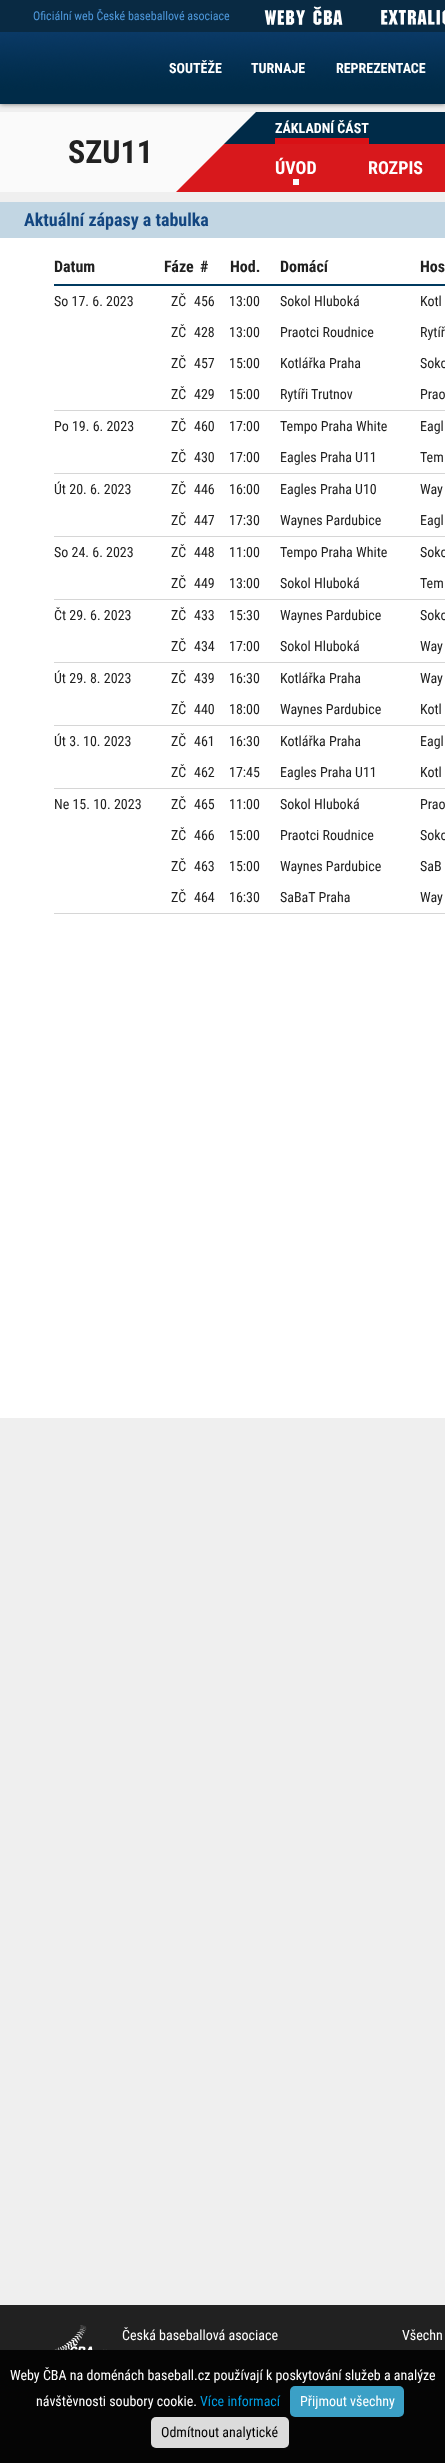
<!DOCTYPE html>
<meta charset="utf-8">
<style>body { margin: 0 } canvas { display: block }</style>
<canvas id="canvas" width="445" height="2463"></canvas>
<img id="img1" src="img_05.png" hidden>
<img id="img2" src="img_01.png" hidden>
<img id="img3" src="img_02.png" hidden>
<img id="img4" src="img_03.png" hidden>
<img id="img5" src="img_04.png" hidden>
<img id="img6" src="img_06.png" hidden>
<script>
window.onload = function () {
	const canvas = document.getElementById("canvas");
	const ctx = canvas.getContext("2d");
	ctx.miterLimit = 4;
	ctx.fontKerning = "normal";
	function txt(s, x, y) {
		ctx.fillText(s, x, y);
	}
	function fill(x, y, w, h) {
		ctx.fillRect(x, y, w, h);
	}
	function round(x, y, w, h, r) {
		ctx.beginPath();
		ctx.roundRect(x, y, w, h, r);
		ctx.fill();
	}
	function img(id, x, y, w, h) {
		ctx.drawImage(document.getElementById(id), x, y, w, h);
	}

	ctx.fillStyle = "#EFEFEF";
	fill(0, 0, 445, 2463);
	ctx.fillStyle = "#FAFAFA";
	fill(0, 112, 200, 80);
	img("img1", 200, 112, 245, 80);
	ctx.fillStyle = "rgba(29, 29, 27, 0.63)";
	ctx.filter = "blur(2.5px)";
	ctx.beginPath();
	ctx.rect(0, 32, 445, 72);
	ctx.fill();
	ctx.filter = "none";
	ctx.fillStyle = "#092A43";
	fill(0, 0, 445, 32);
	img("img2", 264, 6, 79, 19);
	img("img3", 381, 10, 64, 15);
	img("img4", 0, 32, 445, 72);
	img("img5", 176, 168, 24, 24);
	ctx.fillStyle = "#D91116";
	fill(275, 138, 94, 6);
	ctx.fillStyle = "#FAFAFA";
	fill(293, 179, 6, 6);
	ctx.fillStyle = "#FFFFFF";
	fill(0, 238, 445, 1180);
	ctx.fillStyle = "#C2D6E3";
	fill(0, 202, 445, 36);
	ctx.fillStyle = "#003A60";
	fill(54, 284, 391, 2);
	ctx.fillStyle = "#D6D6D6";
	fill(54, 410, 391, 1);
	fill(54, 473, 391, 1);
	fill(54, 536, 391, 1);
	fill(54, 599, 391, 1);
	fill(54, 662, 391, 1);
	fill(54, 725, 391, 1);
	fill(54, 788, 391, 1);
	fill(54, 913, 391, 1);
	ctx.fillStyle = "#212121";
	fill(0, 2305, 445, 45);
	img("img6", 54, 2325, 53, 25);
	ctx.fillStyle = "#050505";
	fill(0, 2350, 445, 113);
	ctx.fillStyle = "#3BA0C6";
	round(290, 2386, 114, 31, 5);
	ctx.fillStyle = "#DBDBDB";
	round(151, 2417, 138, 31, 5);
	ctx.font = "12px Roboto Condensed";
	ctx.fillStyle = "#4E98DB";
	txt("Oficiální web České baseballové asociace", 33, 20);
	ctx.font = "bold 14px Roboto Condensed";
	ctx.fillStyle = "#FFFFFF";
	txt("SOUTĚŽE", 169, 73);
	txt("TURNAJE", 251, 73);
	txt("REPREZENTACE", 336, 73);
	ctx.font = "bold 32px Roboto Condensed";
	ctx.fillStyle = "#212121";
	txt("SZU11", 68, 163);
	ctx.font = "bold 14px Roboto Condensed";
	ctx.fillStyle = "#FFFFFF";
	txt("ZÁKLADNÍ ČÁST", 275, 133);
	ctx.font = "bold 18px Roboto Condensed";
	txt("ÚVOD", 275, 174);
	txt("ROZPIS", 368, 174);
	ctx.fillStyle = "#134680";
	txt("Aktuální zápasy a tabulka", 24, 226);
	ctx.font = "bold 16px Roboto Condensed";
	ctx.fillStyle = "#212121";
	txt("Datum", 54, 272);
	txt("Fáze", 164, 272);
	txt("#", 200, 272);
	txt("Hod.", 230, 272);
	txt("Domácí", 280, 272);
	txt("Hos", 420, 272);
	ctx.font = "14px Roboto Condensed";
	txt("So 17. 6. 2023", 54, 306);
	txt("ZČ", 171, 306);
	txt("456", 194, 306);
	txt("13:00", 229, 306);
	txt("Sokol Hluboká", 280, 306);
	txt("Kotl", 420, 306);
	txt("ZČ", 171, 337);
	txt("428", 194, 337);
	txt("13:00", 229, 337);
	txt("Praotci Roudnice", 280, 337);
	txt("Rytíř", 420, 337);
	txt("ZČ", 171, 368);
	txt("457", 194, 368);
	txt("15:00", 229, 368);
	txt("Kotlářka Praha", 280, 368);
	txt("Soko", 420, 368);
	txt("ZČ", 171, 399);
	txt("429", 194, 399);
	txt("15:00", 229, 399);
	txt("Rytíři Trutnov", 280, 399);
	txt("Prao", 420, 399);
	txt("Po 19. 6. 2023", 54, 431);
	txt("ZČ", 171, 431);
	txt("460", 194, 431);
	txt("17:00", 229, 431);
	txt("Tempo Praha White", 280, 431);
	txt("Eagl", 420, 431);
	txt("ZČ", 171, 462);
	txt("430", 194, 462);
	txt("17:00", 229, 462);
	txt("Eagles Praha U11", 280, 462);
	txt("Tem", 420, 462);
	txt("Út 20. 6. 2023", 54, 494);
	txt("ZČ", 171, 494);
	txt("446", 194, 494);
	txt("16:00", 229, 494);
	txt("Eagles Praha U10", 280, 494);
	txt("Way", 420, 494);
	txt("ZČ", 171, 525);
	txt("447", 194, 525);
	txt("17:30", 229, 525);
	txt("Waynes Pardubice", 280, 525);
	txt("Eagl", 420, 525);
	txt("So 24. 6. 2023", 54, 557);
	txt("ZČ", 171, 557);
	txt("448", 194, 557);
	txt("11:00", 229, 557);
	txt("Tempo Praha White", 280, 557);
	txt("Soko", 420, 557);
	txt("ZČ", 171, 588);
	txt("449", 194, 588);
	txt("13:00", 229, 588);
	txt("Sokol Hluboká", 280, 588);
	txt("Tem", 420, 588);
	txt("Čt 29. 6. 2023", 54, 620);
	txt("ZČ", 171, 620);
	txt("433", 194, 620);
	txt("15:30", 229, 620);
	txt("Waynes Pardubice", 280, 620);
	txt("Soko", 420, 620);
	txt("ZČ", 171, 651);
	txt("434", 194, 651);
	txt("17:00", 229, 651);
	txt("Sokol Hluboká", 280, 651);
	txt("Way", 420, 651);
	txt("Út 29. 8. 2023", 54, 683);
	txt("ZČ", 171, 683);
	txt("439", 194, 683);
	txt("16:30", 229, 683);
	txt("Kotlářka Praha", 280, 683);
	txt("Way", 420, 683);
	txt("ZČ", 171, 714);
	txt("440", 194, 714);
	txt("18:00", 229, 714);
	txt("Waynes Pardubice", 280, 714);
	txt("Kotl", 420, 714);
	txt("Út 3. 10. 2023", 54, 746);
	txt("ZČ", 171, 746);
	txt("461", 194, 746);
	txt("16:30", 229, 746);
	txt("Kotlářka Praha", 280, 746);
	txt("Eagl", 420, 746);
	txt("ZČ", 171, 777);
	txt("462", 194, 777);
	txt("17:45", 229, 777);
	txt("Eagles Praha U11", 280, 777);
	txt("Kotl", 420, 777);
	txt("Ne 15. 10. 2023", 54, 809);
	txt("ZČ", 171, 809);
	txt("465", 194, 809);
	txt("11:00", 229, 809);
	txt("Sokol Hluboká", 280, 809);
	txt("Prao", 420, 809);
	txt("ZČ", 171, 840);
	txt("466", 194, 840);
	txt("15:00", 229, 840);
	txt("Praotci Roudnice", 280, 840);
	txt("Soko", 420, 840);
	txt("ZČ", 171, 871);
	txt("463", 194, 871);
	txt("15:00", 229, 871);
	txt("Waynes Pardubice", 280, 871);
	txt("SaB", 420, 871);
	txt("ZČ", 171, 902);
	txt("464", 194, 902);
	txt("16:30", 229, 902);
	txt("SaBaT Praha", 280, 902);
	txt("Way", 420, 902);
	ctx.fillStyle = "#FFFFFF";
	txt("Česká baseballová asociace", 122, 2340);
	txt("Všechn", 402, 2340);
	txt("Weby ČBA na doménách baseball.cz používají k poskytování služeb a analýze", 10, 2380);
	txt("návštěvnosti soubory cookie.", 36, 2406);
	ctx.fillStyle = "#009DE1";
	txt("Více informací", 200, 2406);
	ctx.fillStyle = "#FFFFFF";
	txt("Přijmout všechny", 300, 2406);
	ctx.fillStyle = "#000000";
	txt("Odmítnout analytické", 161, 2437);
};
</script>
